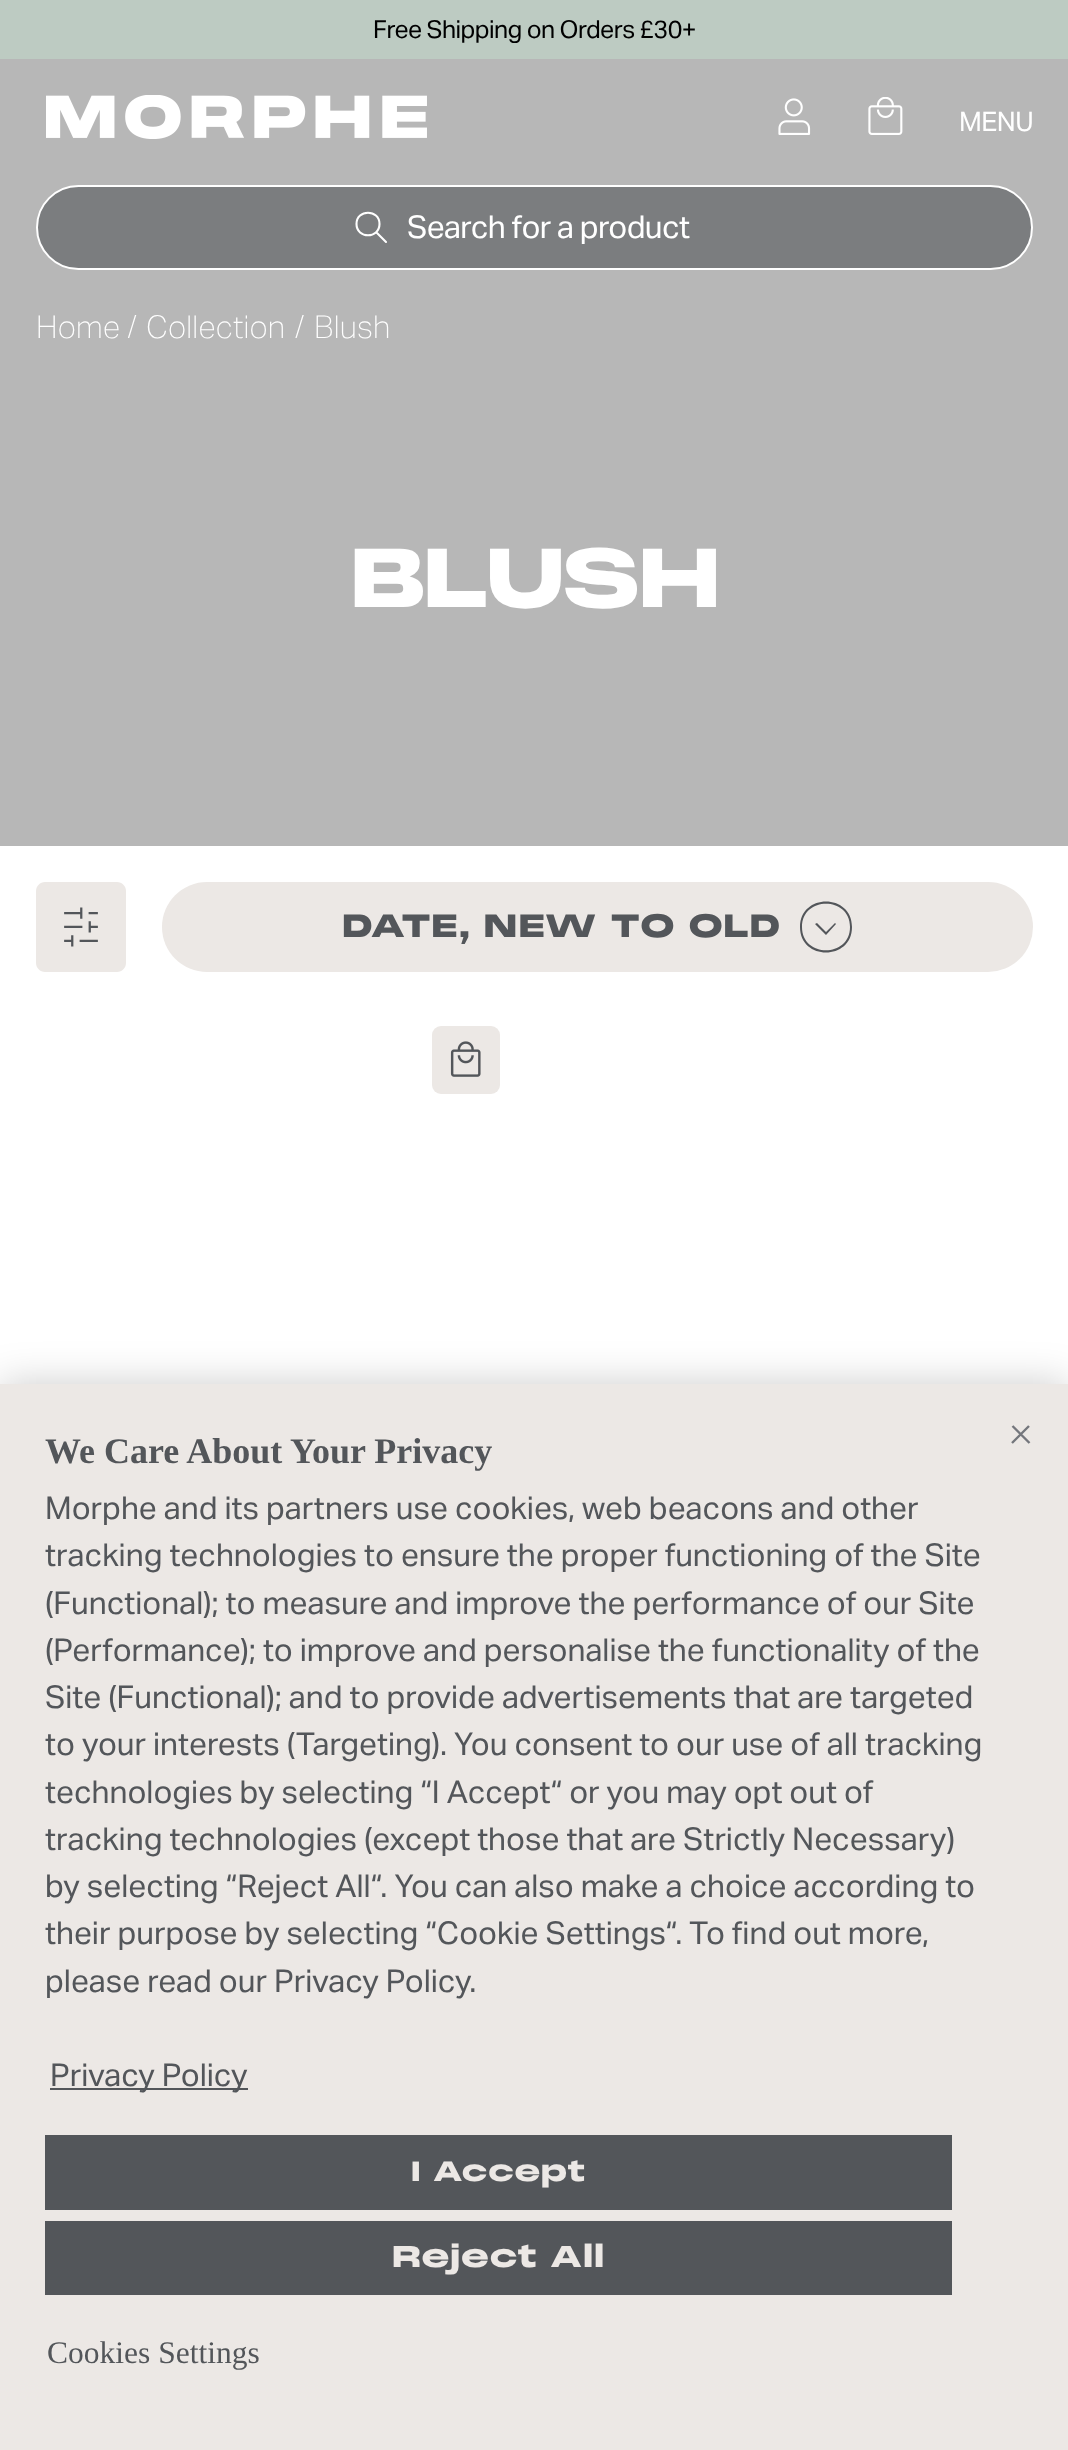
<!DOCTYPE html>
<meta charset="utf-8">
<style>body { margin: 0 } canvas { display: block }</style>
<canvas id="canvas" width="1068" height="2450"></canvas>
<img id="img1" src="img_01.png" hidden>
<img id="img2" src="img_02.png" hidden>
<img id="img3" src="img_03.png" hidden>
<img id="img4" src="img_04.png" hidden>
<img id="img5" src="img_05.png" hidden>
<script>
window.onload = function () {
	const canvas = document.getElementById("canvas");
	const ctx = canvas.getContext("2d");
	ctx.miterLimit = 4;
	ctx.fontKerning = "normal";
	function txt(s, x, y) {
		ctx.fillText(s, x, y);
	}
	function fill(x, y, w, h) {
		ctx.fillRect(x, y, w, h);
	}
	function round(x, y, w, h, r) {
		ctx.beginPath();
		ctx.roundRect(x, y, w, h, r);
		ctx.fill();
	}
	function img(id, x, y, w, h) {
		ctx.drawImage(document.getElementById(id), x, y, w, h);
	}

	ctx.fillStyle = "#FFFFFF";
	fill(0, 0, 1068, 2450);
	ctx.fillStyle = "#BDCBC2";
	fill(0, 0, 1068, 59);
	ctx.fillStyle = "#B7B7B7";
	fill(0, 59, 1068, 787);
	img("img1", 46, 95, 381, 44);
	img("img2", 778, 98, 33, 37);
	img("img3", 868, 97, 35, 38);
	ctx.fillStyle = "#7B7D7F";
	ctx.beginPath();
	ctx.roundRect(37, 186, 995, 83, 41.5);
	ctx.fill();
	ctx.strokeStyle = "#FFFFFF";
	ctx.lineWidth = 2;
	ctx.stroke();
	ctx.beginPath();
	ctx.moveTo(386, 242);
	ctx.lineTo(376.5, 232.5);
	ctx.moveTo(379.5, 224);
	ctx.bezierCurveTo(379.5, 239, 356.5, 239, 356.5, 224);
	ctx.bezierCurveTo(356.5, 209, 379.5, 209, 379.5, 224);
	ctx.closePath();
	ctx.lineWidth = 2.1;
	ctx.lineCap = "round";
	ctx.lineJoin = "round";
	ctx.stroke();
	img("img4", 36, 882, 90, 90);
	ctx.fillStyle = "#ECE8E5";
	round(162, 882, 871, 90, 45);
	ctx.fillStyle = "#53565A";
	ctx.beginPath();
	ctx.moveTo(826, 932);
	ctx.lineTo(817, 923);
	ctx.lineTo(815, 924);
	ctx.lineTo(826, 935);
	ctx.lineTo(836, 924);
	ctx.lineTo(835, 923);
	ctx.closePath();
	ctx.moveTo(800, 927);
	ctx.bezierCurveTo(800, 893, 852, 893, 852, 927);
	ctx.bezierCurveTo(852, 961, 800, 961, 800, 927);
	ctx.closePath();
	ctx.moveTo(802, 927);
	ctx.bezierCurveTo(802, 958, 850, 958, 850, 927);
	ctx.bezierCurveTo(850, 896, 802, 896, 802, 927);
	ctx.closePath();
	ctx.fill();
	ctx.fillStyle = "#ECE8E5";
	round(432, 1026, 68, 68, 9);
	img("img5", 450, 1041, 31, 36);
	ctx.fillStyle = "rgba(0, 0, 0, 0.2)";
	ctx.filter = "blur(20px)";
	ctx.beginPath();
	ctx.rect(0, 1384, 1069, 1066);
	ctx.fill();
	ctx.filter = "none";
	ctx.fillStyle = "#ECE8E5";
	fill(0, 1384, 1068, 1066);
	ctx.beginPath();
	ctx.moveTo(1012, 1443);
	ctx.lineTo(1029, 1426);
	ctx.moveTo(1012.5, 1426);
	ctx.lineTo(1029.5, 1443);
	ctx.strokeStyle = "#74767C";
	ctx.lineWidth = 2.4;
	ctx.lineCap = "butt";
	ctx.lineJoin = "miter";
	ctx.stroke();
	ctx.fillStyle = "#53565A";
	fill(50, 2088, 198, 2);
	fill(45, 2135, 907, 75);
	fill(45, 2221, 907, 74);
	ctx.letterSpacing = "-0.55px";
	ctx.font = "24.75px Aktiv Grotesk";
	ctx.fillStyle = "#000000";
	txt("Free Shipping on Orders £30+", 373, 38);
	ctx.font = "27px Aktiv Grotesk";
	ctx.fillStyle = "#FFFFFF";
	txt("MENU", 959, 131);
	ctx.letterSpacing = "-0.6px";
	ctx.font = "31.5px Aktiv Grotesk";
	txt("Search for a product", 407, 238);
	ctx.letterSpacing = "0.25px";
	ctx.font = "100 31.5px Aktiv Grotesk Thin";
	txt("Home /", 36, 338);
	txt("Collection", 146, 338);
	txt("/", 295, 338);
	txt("Blush", 314, 338);
	ctx.letterSpacing = "-2px";
	ctx.font = "900 81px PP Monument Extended";
	txt("BLUSH", 350, 607);
	ctx.letterSpacing = "0.6px";
	ctx.font = "900 31.5px PP Monument Extended";
	ctx.fillStyle = "#53565A";
	txt("DATE, NEW TO OLD", 342, 937);
	ctx.letterSpacing = "0px";
	ctx.font = "bold 36px Liberation Serif";
	txt("We Care About Your Privacy", 45, 1463);
	ctx.font = "31.5px Aktiv Grotesk";
	txt("Morphe and its partners use cookies, web beacons and other", 45, 1519);
	txt("tracking technologies to ensure the proper functioning of the Site", 45, 1566);
	txt("(Functional); to measure and improve the performance of our Site", 45, 1614);
	txt("(Performance); to improve and personalise the functionality of the", 45, 1661);
	txt("Site (Functional); and to provide advertisements that are targeted", 45, 1708);
	txt("to your interests (Targeting). You consent to our use of all tracking", 45, 1755);
	txt("technologies by selecting “I Accept“ or you may opt out of", 45, 1803);
	txt("tracking technologies (except those that are Strictly Necessary)", 45, 1850);
	txt("by selecting “Reject All“. You can also make a choice according to", 45, 1897);
	txt("their purpose by selecting “Cookie Settings“. To find out more,", 45, 1944);
	txt("please read our Privacy Policy.", 45, 1992);
	txt("Privacy Policy", 50, 2086);
	ctx.letterSpacing = "0.75px";
	ctx.font = "900 27px PP Monument Extended";
	ctx.fillStyle = "#ECE8E5";
	txt("I Accept", 411, 2181);
	ctx.font = "900 29.25px PP Monument Extended";
	txt("Reject All", 392, 2267);
	ctx.letterSpacing = "0px";
	ctx.font = "31.5px Liberation Serif";
	ctx.fillStyle = "#53565A";
	txt("Cookies Settings", 47, 2363);
};
</script>
